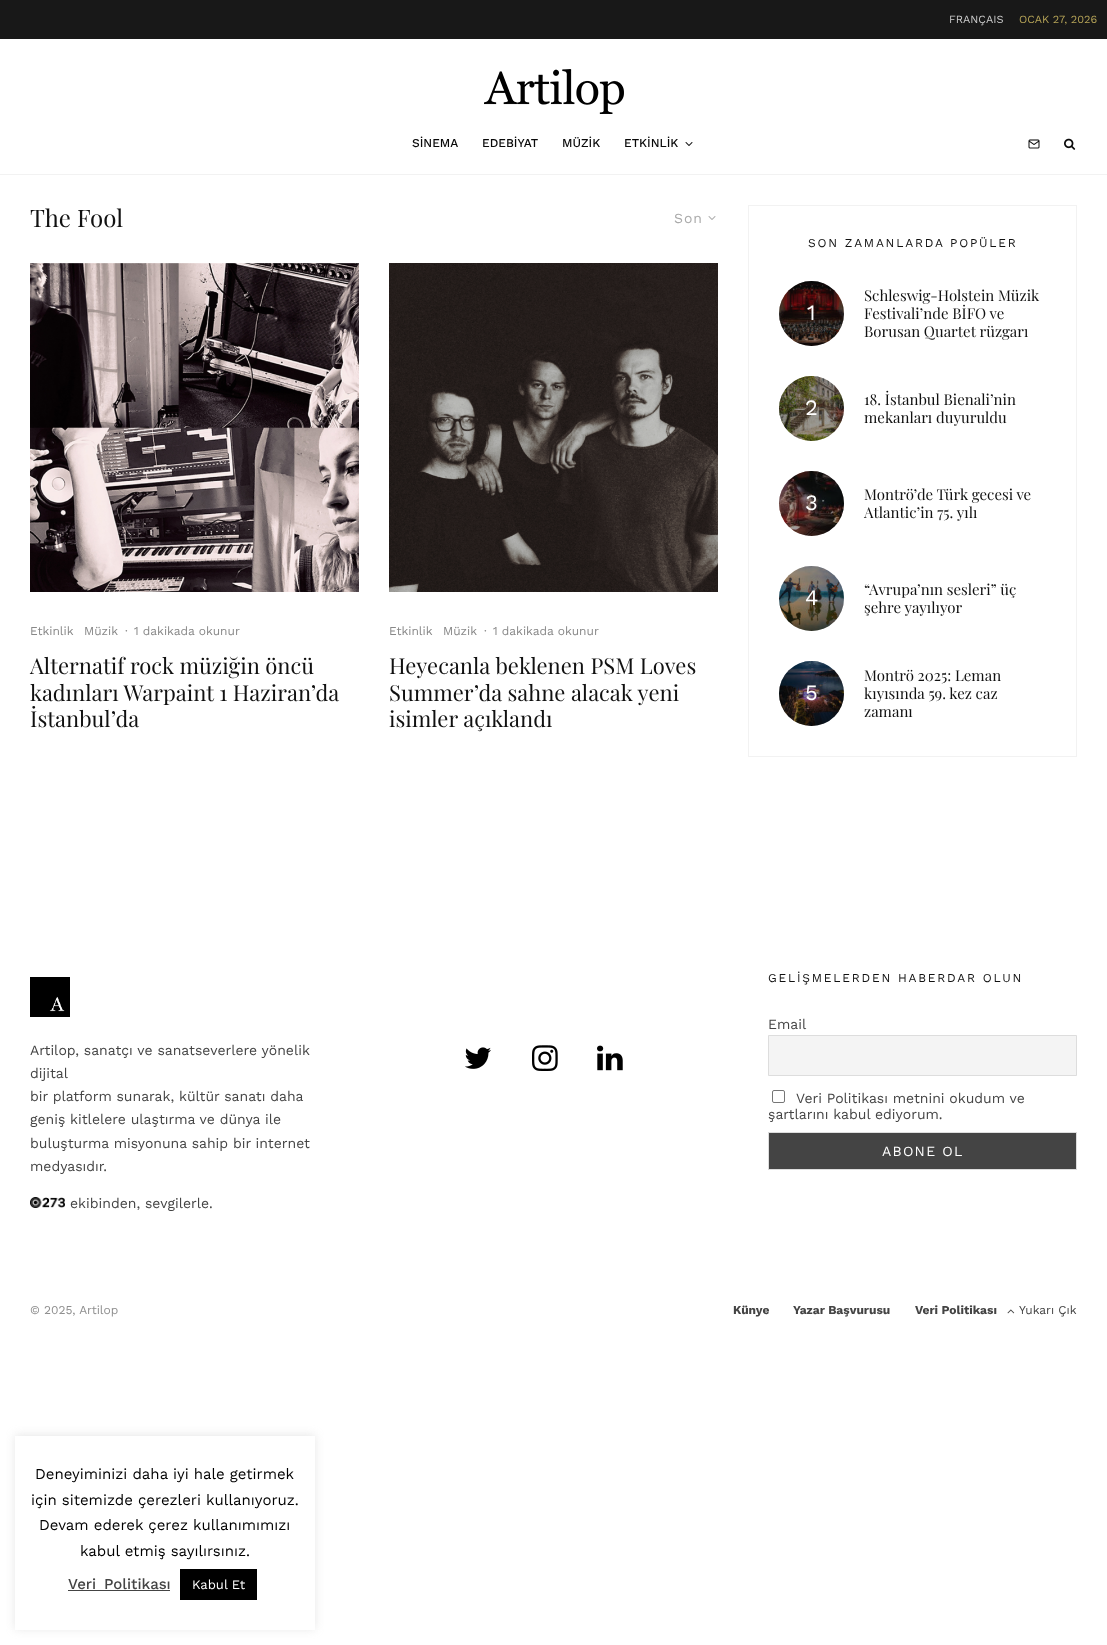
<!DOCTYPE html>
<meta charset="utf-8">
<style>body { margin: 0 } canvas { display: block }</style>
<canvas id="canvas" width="1107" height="1645"></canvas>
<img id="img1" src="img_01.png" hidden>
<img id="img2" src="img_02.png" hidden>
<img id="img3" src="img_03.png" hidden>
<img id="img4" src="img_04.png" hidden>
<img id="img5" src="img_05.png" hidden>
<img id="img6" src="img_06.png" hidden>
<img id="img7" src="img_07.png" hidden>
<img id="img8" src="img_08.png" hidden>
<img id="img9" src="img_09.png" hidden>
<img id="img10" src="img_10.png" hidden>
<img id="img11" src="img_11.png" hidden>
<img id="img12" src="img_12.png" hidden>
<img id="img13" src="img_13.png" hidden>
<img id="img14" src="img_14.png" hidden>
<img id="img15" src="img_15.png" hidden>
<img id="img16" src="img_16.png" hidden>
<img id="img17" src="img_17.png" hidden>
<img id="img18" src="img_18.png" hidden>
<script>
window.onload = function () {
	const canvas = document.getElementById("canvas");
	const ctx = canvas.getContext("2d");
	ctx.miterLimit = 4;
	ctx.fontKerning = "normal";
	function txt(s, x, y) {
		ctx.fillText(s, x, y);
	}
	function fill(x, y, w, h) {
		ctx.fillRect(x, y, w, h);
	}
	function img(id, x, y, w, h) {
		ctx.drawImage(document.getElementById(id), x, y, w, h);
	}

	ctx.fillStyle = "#FFFFFF";
	fill(0, 0, 1107, 1645);
	ctx.fillStyle = "#181818";
	fill(0, 0, 1107, 39);
	img("img1", 484, 69, 140, 45);
	ctx.fillStyle = "#F2F2F2";
	fill(0, 174, 1107, 1);
	img("img2", 685, 142, 8, 4);
	img("img3", 1028, 139, 12, 10);
	img("img4", 1064, 138, 12, 12);
	img("img5", 708, 216, 8, 4);
	img("img6", 30, 263, 329, 329);
	img("img7", 389, 263, 329, 329);
	ctx.strokeStyle = "#F2F2F2";
	ctx.strokeRect(748.5, 205.5, 328, 551);
	img("img8", 779, 281, 65, 65);
	ctx.fillStyle = "rgba(18, 19, 20, 0.4)";
	ctx.beginPath();
	ctx.arc(811.5, 313.5, 32.5, 0, Math.PI * 2);
	ctx.fill();
	img("img9", 779, 376, 65, 65);
	ctx.beginPath();
	ctx.arc(811.5, 408.5, 32.5, 0, Math.PI * 2);
	ctx.fill();
	img("img10", 779, 471, 65, 65);
	ctx.beginPath();
	ctx.arc(811.5, 503.5, 32.5, 0, Math.PI * 2);
	ctx.fill();
	img("img11", 779, 566, 65, 65);
	ctx.beginPath();
	ctx.arc(811.5, 598.5, 32.5, 0, Math.PI * 2);
	ctx.fill();
	img("img12", 779, 661, 65, 65);
	ctx.beginPath();
	ctx.arc(811.5, 693.5, 32.5, 0, Math.PI * 2);
	ctx.fill();
	img("img13", 30, 977, 40, 40);
	img("img14", 30, 1197, 35, 11);
	img("img15", 465, 1047, 26, 22);
	img("img16", 532, 1045, 26, 26);
	img("img17", 597, 1045, 26, 26);
	ctx.fillStyle = "#F4F4F4";
	ctx.beginPath();
	ctx.rect(768.5, 1035.5, 308, 40);
	ctx.fill();
	ctx.strokeStyle = "#DDDDDD";
	ctx.stroke();
	ctx.beginPath();
	ctx.roundRect(772.5, 1090.5, 12, 12, 1.5);
	ctx.strokeStyle = "#767676";
	ctx.stroke();
	ctx.fillStyle = "#444444";
	ctx.beginPath();
	ctx.rect(768.5, 1132.5, 308, 37);
	ctx.fill();
	ctx.strokeStyle = "#DDDDDD";
	ctx.stroke();
	img("img18", 1007, 1309, 8, 5);
	ctx.save();
	ctx.beginPath();
	ctx.moveTo(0, 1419);
	ctx.lineTo(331, 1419);
	ctx.lineTo(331, 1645);
	ctx.lineTo(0, 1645);
	ctx.closePath();
	ctx.moveTo(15, 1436);
	ctx.lineTo(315, 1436);
	ctx.lineTo(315, 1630);
	ctx.lineTo(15, 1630);
	ctx.closePath();
	ctx.clip("evenodd");
	ctx.fillStyle = "rgba(172, 171, 171, 0.3)";
	ctx.filter = "blur(5px)";
	ctx.beginPath();
	ctx.rect(15, 1435, 300, 194);
	ctx.fill();
	ctx.filter = "none";
	ctx.restore();
	fill(68, 1590, 102, 1);
	ctx.fillStyle = "#000000";
	fill(180, 1569, 77, 31);
	ctx.font = "11px Work Sans";
	ctx.fillStyle = "#CCCCCC";
	txt("FRANÇAIS", 949, 23);
	ctx.fillStyle = "#B5A357";
	txt("OCAK 27, 2026", 1019, 23);
	ctx.font = "500 12px Work Sans";
	ctx.fillStyle = "#0A0A0A";
	txt("SİNEMA", 412, 147);
	txt("EDEBİYAT", 482, 147);
	txt("MÜZİK", 562, 147);
	txt("ETKİNLİK", 624, 147);
	ctx.font = "24px Playfair Display";
	ctx.fillStyle = "#111111";
	txt("The Fool", 30, 227);
	ctx.letterSpacing = "1px";
	ctx.font = "14px Work Sans";
	ctx.fillStyle = "#AAAAAA";
	txt("Son", 674, 223);
	ctx.letterSpacing = "0px";
	ctx.font = "12px Work Sans";
	ctx.fillStyle = "#888888";
	txt("Etkinlik", 30, 635);
	txt("Müzik", 84, 635);
	txt("·", 125, 635);
	txt("1 dakikada okunur", 134, 635);
	ctx.font = "22px Playfair Display";
	ctx.fillStyle = "#111111";
	txt("Alternatif rock müziğin öncü", 30, 674);
	txt("kadınları Warpaint 1 Haziran’da", 30, 701);
	txt("İstanbul’da", 30, 727);
	ctx.font = "12px Work Sans";
	ctx.fillStyle = "#888888";
	txt("Etkinlik", 389, 635);
	txt("Müzik", 443, 635);
	txt("·", 484, 635);
	txt("1 dakikada okunur", 493, 635);
	ctx.font = "22px Playfair Display";
	ctx.fillStyle = "#111111";
	txt("Heyecanla beklenen PSM Loves", 389, 674);
	txt("Summer’da sahne alacak yeni", 389, 701);
	txt("isimler açıklandı", 389, 727);
	ctx.letterSpacing = "1.8px";
	ctx.font = "12px Work Sans";
	txt("SON ZAMANLARDA POPÜLER", 808, 247);
	ctx.letterSpacing = "0px";
	ctx.font = "22px Work Sans";
	ctx.fillStyle = "#FFFFFF";
	txt("1", 807, 320);
	ctx.font = "15px Playfair Display";
	ctx.fillStyle = "#111111";
	txt("Schleswig-Holstein Müzik", 864, 301);
	txt("Festivali’nde BİFO ve", 864, 319);
	txt("Borusan Quartet rüzgarı", 864, 337);
	ctx.font = "22px Work Sans";
	ctx.fillStyle = "#FFFFFF";
	txt("2", 805, 415);
	ctx.font = "15px Playfair Display";
	ctx.fillStyle = "#111111";
	txt("18. İstanbul Bienali’nin", 864, 405);
	txt("mekanları duyuruldu", 864, 423);
	ctx.font = "22px Work Sans";
	ctx.fillStyle = "#FFFFFF";
	txt("3", 805, 510);
	ctx.font = "15px Playfair Display";
	ctx.fillStyle = "#111111";
	txt("Montrö’de Türk gecesi ve", 864, 500);
	txt("Atlantic’in 75. yılı", 864, 518);
	ctx.font = "22px Work Sans";
	ctx.fillStyle = "#FFFFFF";
	txt("4", 805, 605);
	ctx.font = "15px Playfair Display";
	ctx.fillStyle = "#111111";
	txt("“Avrupa’nın sesleri” üç", 864, 595);
	txt("şehre yayılıyor", 864, 613);
	ctx.font = "22px Work Sans";
	ctx.fillStyle = "#FFFFFF";
	txt("5", 805, 700);
	ctx.font = "15px Playfair Display";
	ctx.fillStyle = "#111111";
	txt("Montrö 2025: Leman", 864, 681);
	txt("kıyısında 59. kez caz", 864, 699);
	txt("zamanı", 864, 717);
	ctx.font = "14px Work Sans";
	ctx.fillStyle = "#444444";
	txt("Artilop, sanatçı ve sanatseverlere yönelik", 30, 1055);
	txt("dijital", 30, 1078);
	txt("bir platform sunarak, kültür sanatı daha", 30, 1101);
	txt("geniş kitlelere ulaştırma ve dünya ile", 30, 1124);
	txt("buluşturma misyonuna sahip bir internet", 30, 1148);
	txt("medyasıdır.", 30, 1171);
	txt("ekibinden, sevgilerle.", 70, 1208);
	ctx.letterSpacing = "1.8px";
	ctx.font = "12px Work Sans";
	ctx.fillStyle = "#111111";
	txt("GELİŞMELERDEN HABERDAR OLUN", 768, 982);
	ctx.letterSpacing = "0px";
	ctx.font = "14px Work Sans";
	ctx.fillStyle = "#444444";
	txt("Email", 768, 1029);
	txt("Veri Politikası metnini okudum ve", 796, 1103);
	txt("şartlarını kabul ediyorum.", 768, 1119);
	ctx.letterSpacing = "1.25px";
	ctx.fillStyle = "#FFFFFF";
	txt("ABONE OL", 882, 1156);
	ctx.letterSpacing = "0px";
	ctx.font = "12px Work Sans";
	ctx.fillStyle = "#8E8E8E";
	txt("© 2025, Artilop", 30, 1314);
	ctx.font = "bold 12px Work Sans";
	ctx.fillStyle = "#444444";
	txt("Künye", 733, 1314);
	txt("Yazar Başvurusu", 793, 1314);
	txt("Veri Politikası", 915, 1314);
	ctx.font = "12px Work Sans";
	txt("Yukarı Çık", 1019, 1314);
	ctx.font = "15px Work Sans";
	ctx.fillStyle = "#000000";
	txt("Deneyiminizi daha iyi hale getirmek", 35, 1479);
	txt("için sitemizde çerezleri kullanıyoruz.", 31, 1505);
	txt("Devam ederek çerez kullanımımızı", 39, 1530);
	txt("kabul etmiş sayılırsınız.", 80, 1556);
	ctx.wordSpacing = "3px";
	ctx.font = "500 15px Work Sans";
	ctx.fillStyle = "#444444";
	txt("Veri Politikası", 68, 1589);
	ctx.wordSpacing = "0px";
	ctx.font = "13px Work Sans";
	ctx.fillStyle = "#FFFFFF";
	txt("Kabul Et", 192, 1589);
};
</script>
